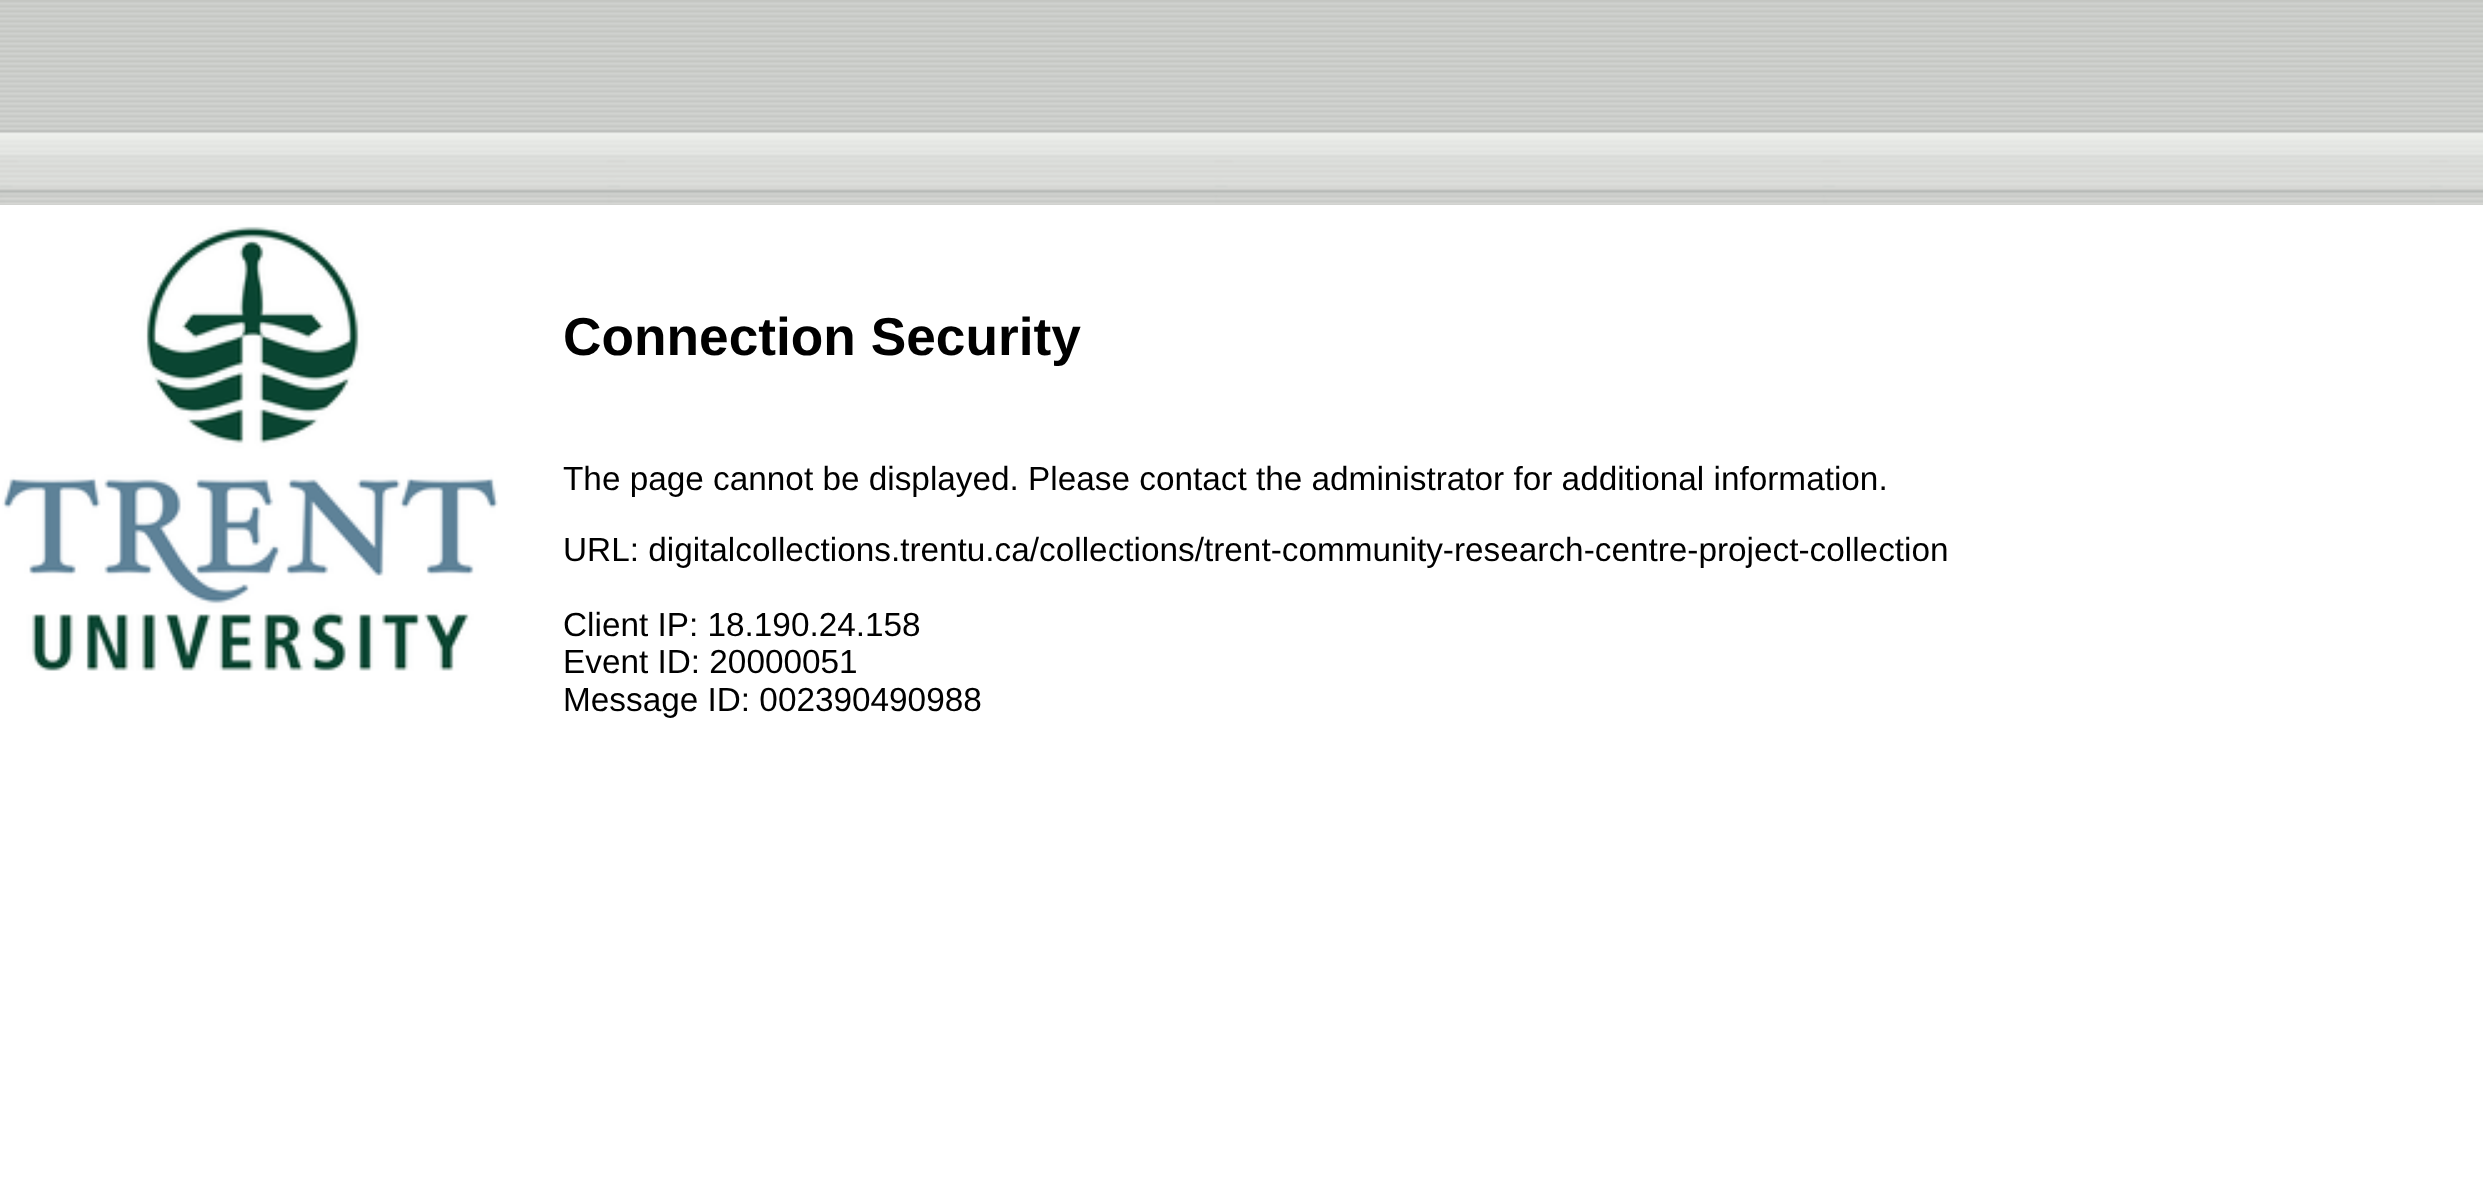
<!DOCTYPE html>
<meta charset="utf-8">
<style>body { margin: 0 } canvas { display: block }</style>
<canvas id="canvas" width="2483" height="1199"></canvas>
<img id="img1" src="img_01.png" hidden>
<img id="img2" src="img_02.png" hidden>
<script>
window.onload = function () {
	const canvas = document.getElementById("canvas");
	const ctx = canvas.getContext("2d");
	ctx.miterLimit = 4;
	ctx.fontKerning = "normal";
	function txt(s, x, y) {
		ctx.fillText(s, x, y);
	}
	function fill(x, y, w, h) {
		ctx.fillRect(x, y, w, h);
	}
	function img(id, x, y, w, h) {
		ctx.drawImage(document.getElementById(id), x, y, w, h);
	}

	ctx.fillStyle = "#FFFFFF";
	fill(0, 0, 2483, 1199);
	img("img1", 0, 0, 2483, 205);
	img("img2", 2, 226, 496, 445);
	ctx.font = "bold 53.25px Liberation Sans";
	ctx.fillStyle = "#000000";
	txt("Connection Security", 563, 355);
	ctx.font = "33.35px Liberation Sans";
	txt("The page cannot be displayed. Please contact the administrator for additional information.", 563, 490);
	txt("URL: digitalcollections.trentu.ca/collections/trent-community-research-centre-project-collection", 563, 561);
	txt("Client IP: 18.190.24.158", 563, 636);
	txt("Event ID: 20000051", 563, 673);
	txt("Message ID: 002390490988", 563, 711);
};
</script>
